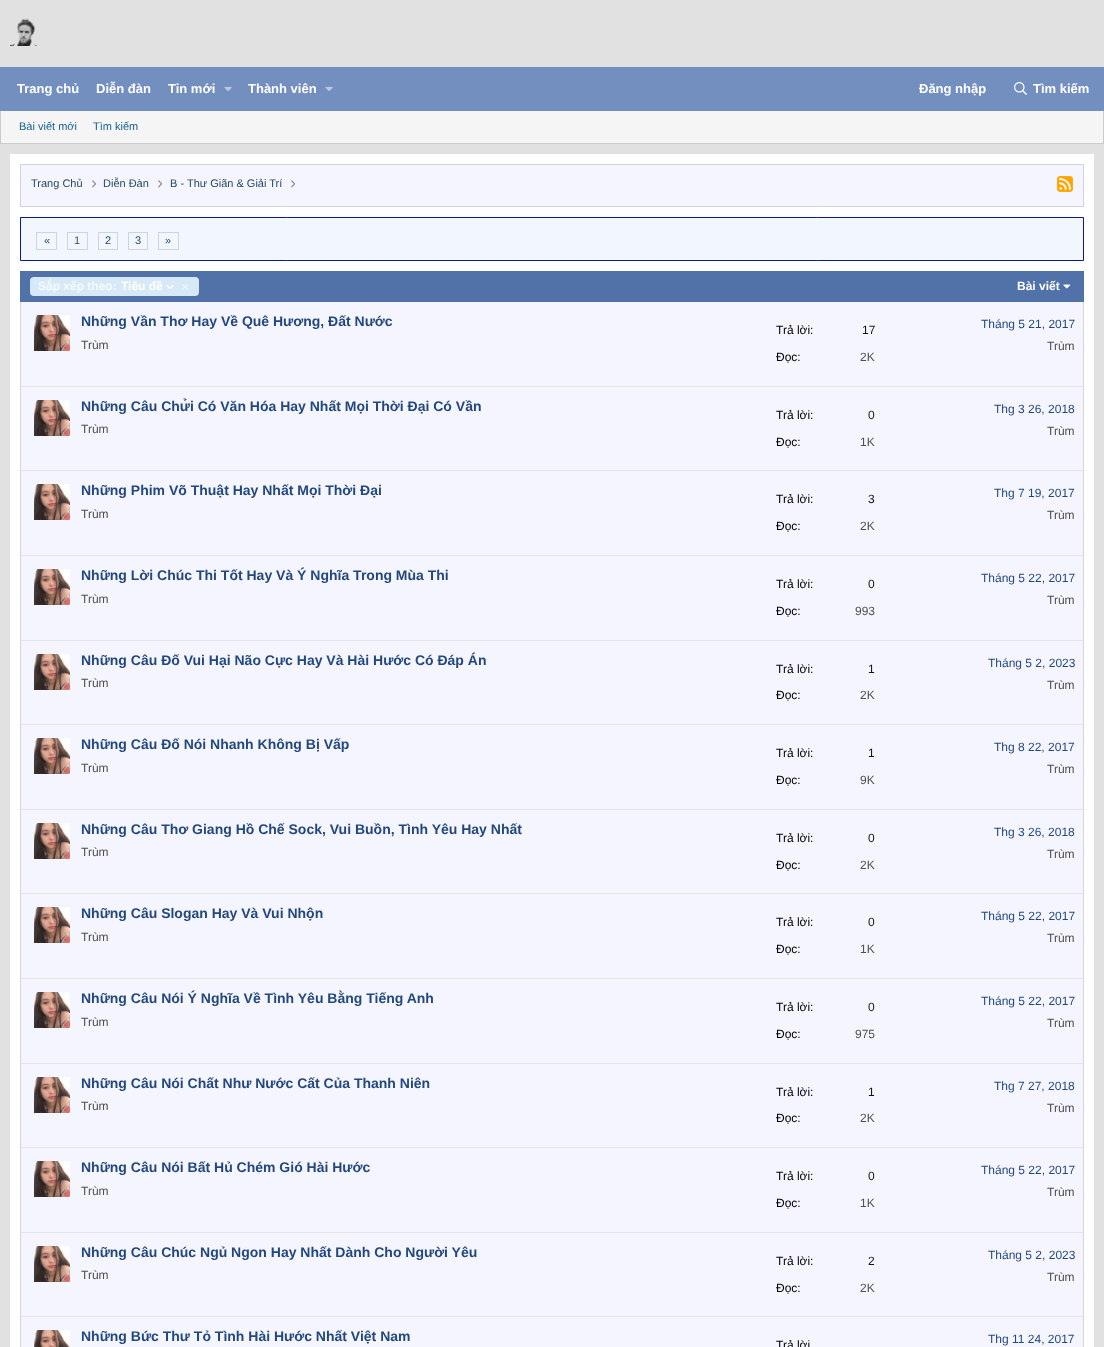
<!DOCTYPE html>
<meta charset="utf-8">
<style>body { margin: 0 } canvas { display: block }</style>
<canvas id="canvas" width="1104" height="1347"></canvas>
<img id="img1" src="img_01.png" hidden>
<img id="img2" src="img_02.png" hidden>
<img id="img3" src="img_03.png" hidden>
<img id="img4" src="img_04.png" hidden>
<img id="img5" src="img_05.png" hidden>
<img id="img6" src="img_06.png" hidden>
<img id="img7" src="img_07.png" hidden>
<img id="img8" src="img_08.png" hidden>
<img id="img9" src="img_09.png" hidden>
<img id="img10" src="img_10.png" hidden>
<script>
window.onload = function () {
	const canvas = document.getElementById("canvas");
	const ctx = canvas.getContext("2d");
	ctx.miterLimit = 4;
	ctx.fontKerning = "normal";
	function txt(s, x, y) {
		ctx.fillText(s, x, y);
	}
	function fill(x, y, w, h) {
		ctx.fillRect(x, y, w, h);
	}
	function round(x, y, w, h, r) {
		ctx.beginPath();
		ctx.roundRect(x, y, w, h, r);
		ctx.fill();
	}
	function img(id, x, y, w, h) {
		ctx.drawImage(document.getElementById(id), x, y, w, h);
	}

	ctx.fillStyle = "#E1E1E1";
	fill(0, 0, 1104, 1347);
	img("img1", 10, 18, 28, 28);
	ctx.fillStyle = "#738FBF";
	fill(0, 67, 1104, 44);
	img("img2", 224, 86, 8, 5);
	img("img2", 325, 86, 8, 5);
	img("img3", 1014, 82, 13, 13);
	ctx.fillStyle = "#F5F5F5";
	fill(1, 111, 1102, 32);
	ctx.fillStyle = "#CCCCCC";
	fill(1103, 111, 1, 33);
	fill(0, 143, 1104, 1);
	fill(0, 111, 1, 33);
	ctx.fillStyle = "#FFFFFF";
	fill(10, 154, 1084, 1193);
	ctx.fillStyle = "#F5F5FF";
	ctx.beginPath();
	ctx.rect(20.5, 164.5, 1063, 42);
	ctx.fill();
	ctx.strokeStyle = "#D1D1E1";
	ctx.stroke();
	img("img4", 92, 180, 4, 8);
	img("img4", 158, 180, 4, 8);
	img("img4", 291, 180, 4, 8);
	img("img5", 1057, 176, 16, 16);
	ctx.fillStyle = "#F1F7FC";
	ctx.beginPath();
	ctx.rect(20.5, 217.5, 1063, 43);
	ctx.fill();
	ctx.strokeStyle = "#0B198C";
	ctx.stroke();
	ctx.strokeStyle = "#D1D1E1";
	ctx.strokeRect(36.5, 232.5, 20, 17);
	ctx.strokeRect(67.5, 232.5, 20, 17);
	ctx.strokeRect(98.5, 232.5, 19, 17);
	ctx.strokeRect(128.5, 232.5, 19, 17);
	ctx.strokeRect(158.5, 232.5, 20, 17);
	ctx.fillStyle = "#5171A9";
	fill(20, 271, 1064, 31);
	ctx.fillStyle = "#D7E9F7";
	round(30, 277, 169, 19, 4);
	img("img6", 166, 285, 8, 4);
	img("img7", 182, 284, 6, 6);
	img("img8", 1063, 284, 8, 5);
	ctx.fillStyle = "#D6D6D6";
	ctx.beginPath();
	ctx.moveTo(20, 302);
	ctx.lineTo(1084, 302);
	ctx.lineTo(1084, 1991);
	ctx.bezierCurveTo(1084, 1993, 1083, 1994, 1081, 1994);
	ctx.lineTo(23, 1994);
	ctx.bezierCurveTo(21, 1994, 20, 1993, 20, 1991);
	ctx.closePath();
	ctx.moveTo(21, 302);
	ctx.lineTo(1083, 302);
	ctx.lineTo(1083, 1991);
	ctx.bezierCurveTo(1083, 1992, 1082, 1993, 1081, 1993);
	ctx.lineTo(23, 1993);
	ctx.bezierCurveTo(22, 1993, 21, 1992, 21, 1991);
	ctx.closePath();
	ctx.fill("evenodd");
	ctx.fillStyle = "#F5F5FF";
	fill(21, 302, 1062, 84);
	img("img9", 34, 315, 36, 36);
	fill(21, 387, 1062, 83);
	ctx.fillStyle = "#E5E5E5";
	fill(21, 386, 1062, 1);
	img("img9", 34, 400, 36, 36);
	ctx.fillStyle = "#F5F5FF";
	fill(21, 471, 1062, 84);
	ctx.fillStyle = "#E5E5E5";
	fill(21, 470, 1062, 1);
	img("img9", 34, 484, 36, 36);
	ctx.fillStyle = "#F5F5FF";
	fill(21, 556, 1062, 84);
	ctx.fillStyle = "#E5E5E5";
	fill(21, 555, 1062, 1);
	img("img9", 34, 569, 36, 36);
	ctx.fillStyle = "#F5F5FF";
	fill(21, 641, 1062, 83);
	ctx.fillStyle = "#E5E5E5";
	fill(21, 640, 1062, 1);
	img("img9", 34, 654, 36, 36);
	ctx.fillStyle = "#F5F5FF";
	fill(21, 725, 1062, 84);
	ctx.fillStyle = "#E5E5E5";
	fill(21, 724, 1062, 1);
	img("img9", 34, 738, 36, 36);
	ctx.fillStyle = "#F5F5FF";
	fill(21, 810, 1062, 83);
	ctx.fillStyle = "#E5E5E5";
	fill(21, 809, 1062, 1);
	img("img9", 34, 823, 36, 36);
	ctx.fillStyle = "#F5F5FF";
	fill(21, 894, 1062, 84);
	ctx.fillStyle = "#E5E5E5";
	fill(21, 893, 1062, 1);
	img("img9", 34, 907, 36, 36);
	ctx.fillStyle = "#F5F5FF";
	fill(21, 979, 1062, 84);
	ctx.fillStyle = "#E5E5E5";
	fill(21, 978, 1062, 1);
	img("img9", 34, 992, 36, 36);
	ctx.fillStyle = "#F5F5FF";
	fill(21, 1064, 1062, 83);
	ctx.fillStyle = "#E5E5E5";
	fill(21, 1063, 1062, 1);
	img("img9", 34, 1077, 36, 36);
	ctx.fillStyle = "#F5F5FF";
	fill(21, 1148, 1062, 84);
	ctx.fillStyle = "#E5E5E5";
	fill(21, 1147, 1062, 1);
	img("img9", 34, 1161, 36, 36);
	ctx.fillStyle = "#F5F5FF";
	fill(21, 1233, 1062, 83);
	ctx.fillStyle = "#E5E5E5";
	fill(21, 1232, 1062, 1);
	img("img9", 34, 1246, 36, 36);
	ctx.fillStyle = "#F5F5FF";
	fill(21, 1317, 1062, 30);
	ctx.fillStyle = "#E5E5E5";
	fill(21, 1316, 1062, 1);
	img("img10", 34, 1330, 36, 17);
	ctx.font = "bold 13px Liberation Sans";
	ctx.fillStyle = "#FFFFFF";
	txt("Trang chủ", 17, 93);
	txt("Diễn đàn", 96, 93);
	txt("Tin mới", 168, 93);
	txt("Thành viên", 248, 93);
	txt("Đăng nhập", 919, 93);
	txt("Tìm kiếm", 1033, 93);
	ctx.font = "11px Liberation Sans";
	ctx.fillStyle = "#176093";
	txt("Bài viết mới", 19, 130);
	txt("Tìm kiếm", 93, 130);
	ctx.fillStyle = "#234965";
	txt("Trang Chủ", 31, 187);
	txt("Diễn Đàn", 103, 187);
	txt("B - Thư Giãn & Giải Trí", 170, 187);
	ctx.fillStyle = "#23497C";
	txt("«", 44, 244);
	txt("1", 74, 244);
	txt("2", 105, 244);
	txt("3", 135, 244);
	txt("»", 165, 244);
	ctx.font = "bold 12px Liberation Sans";
	ctx.fillStyle = "#F5FAFD";
	txt("Sắp xếp theo:", 38, 290);
	ctx.fillStyle = "#FFFFFF";
	txt("Tiêu đề", 121, 290);
	txt("Bài viết", 1017, 290);
	ctx.font = "bold 14px Liberation Sans";
	ctx.fillStyle = "#23497C";
	txt("Những Vần Thơ Hay Về Quê Hương, Đất Nước", 81, 326);
	ctx.font = "12px Liberation Sans";
	ctx.fillStyle = "#4F4F4F";
	txt("Trùm", 81, 349);
	ctx.fillStyle = "#000000";
	txt("Trả lời:", 776, 334);
	ctx.fillStyle = "#141414";
	txt("17", 862, 334);
	ctx.fillStyle = "#000000";
	txt("Đọc:", 776, 361);
	ctx.fillStyle = "#4F4F4F";
	txt("2K", 860, 361);
	ctx.fillStyle = "#23497C";
	txt("Tháng 5 21, 2017", 981, 328);
	ctx.fillStyle = "#4F4F4F";
	txt("Trùm", 1047, 350);
	ctx.font = "bold 14px Liberation Sans";
	ctx.fillStyle = "#23497C";
	txt("Những Câu Chửi Có Văn Hóa Hay Nhất Mọi Thời Đại Có Vần", 81, 411);
	ctx.font = "12px Liberation Sans";
	ctx.fillStyle = "#4F4F4F";
	txt("Trùm", 81, 433);
	ctx.fillStyle = "#000000";
	txt("Trả lời:", 776, 419);
	ctx.fillStyle = "#141414";
	txt("0", 868, 419);
	ctx.fillStyle = "#000000";
	txt("Đọc:", 776, 446);
	ctx.fillStyle = "#4F4F4F";
	txt("1K", 860, 446);
	ctx.fillStyle = "#23497C";
	txt("Thg 3 26, 2018", 994, 413);
	ctx.fillStyle = "#4F4F4F";
	txt("Trùm", 1047, 435);
	ctx.font = "bold 14px Liberation Sans";
	ctx.fillStyle = "#23497C";
	txt("Những Phim Võ Thuật Hay Nhất Mọi Thời Đại", 81, 495);
	ctx.font = "12px Liberation Sans";
	ctx.fillStyle = "#4F4F4F";
	txt("Trùm", 81, 518);
	ctx.fillStyle = "#000000";
	txt("Trả lời:", 776, 503);
	ctx.fillStyle = "#141414";
	txt("3", 868, 503);
	ctx.fillStyle = "#000000";
	txt("Đọc:", 776, 530);
	ctx.fillStyle = "#4F4F4F";
	txt("2K", 860, 530);
	ctx.fillStyle = "#23497C";
	txt("Thg 7 19, 2017", 994, 497);
	ctx.fillStyle = "#4F4F4F";
	txt("Trùm", 1047, 519);
	ctx.font = "bold 14px Liberation Sans";
	ctx.fillStyle = "#23497C";
	txt("Những Lời Chúc Thi Tốt Hay Và Ý Nghĩa Trong Mùa Thi", 81, 580);
	ctx.font = "12px Liberation Sans";
	ctx.fillStyle = "#4F4F4F";
	txt("Trùm", 81, 603);
	ctx.fillStyle = "#000000";
	txt("Trả lời:", 776, 588);
	ctx.fillStyle = "#141414";
	txt("0", 868, 588);
	ctx.fillStyle = "#000000";
	txt("Đọc:", 776, 615);
	ctx.fillStyle = "#4F4F4F";
	txt("993", 855, 615);
	ctx.fillStyle = "#23497C";
	txt("Tháng 5 22, 2017", 981, 582);
	ctx.fillStyle = "#4F4F4F";
	txt("Trùm", 1047, 604);
	ctx.font = "bold 14px Liberation Sans";
	ctx.fillStyle = "#23497C";
	txt("Những Câu Đố Vui Hại Não Cực Hay Và Hài Hước Có Đáp Án", 81, 665);
	ctx.font = "12px Liberation Sans";
	ctx.fillStyle = "#4F4F4F";
	txt("Trùm", 81, 687);
	ctx.fillStyle = "#000000";
	txt("Trả lời:", 776, 673);
	ctx.fillStyle = "#141414";
	txt("1", 868, 673);
	ctx.fillStyle = "#000000";
	txt("Đọc:", 776, 699);
	ctx.fillStyle = "#4F4F4F";
	txt("2K", 860, 699);
	ctx.fillStyle = "#23497C";
	txt("Tháng 5 2, 2023", 988, 667);
	ctx.fillStyle = "#4F4F4F";
	txt("Trùm", 1047, 689);
	ctx.font = "bold 14px Liberation Sans";
	ctx.fillStyle = "#23497C";
	txt("Những Câu Đố Nói Nhanh Không Bị Vấp", 81, 749);
	ctx.font = "12px Liberation Sans";
	ctx.fillStyle = "#4F4F4F";
	txt("Trùm", 81, 772);
	ctx.fillStyle = "#000000";
	txt("Trả lời:", 776, 757);
	ctx.fillStyle = "#141414";
	txt("1", 868, 757);
	ctx.fillStyle = "#000000";
	txt("Đọc:", 776, 784);
	ctx.fillStyle = "#4F4F4F";
	txt("9K", 860, 784);
	ctx.fillStyle = "#23497C";
	txt("Thg 8 22, 2017", 994, 751);
	ctx.fillStyle = "#4F4F4F";
	txt("Trùm", 1047, 773);
	ctx.font = "bold 14px Liberation Sans";
	ctx.fillStyle = "#23497C";
	txt("Những Câu Thơ Giang Hồ Chế Sock, Vui Buồn, Tình Yêu Hay Nhất", 81, 834);
	ctx.font = "12px Liberation Sans";
	ctx.fillStyle = "#4F4F4F";
	txt("Trùm", 81, 856);
	ctx.fillStyle = "#000000";
	txt("Trả lời:", 776, 842);
	ctx.fillStyle = "#141414";
	txt("0", 868, 842);
	ctx.fillStyle = "#000000";
	txt("Đọc:", 776, 869);
	ctx.fillStyle = "#4F4F4F";
	txt("2K", 860, 869);
	ctx.fillStyle = "#23497C";
	txt("Thg 3 26, 2018", 994, 836);
	ctx.fillStyle = "#4F4F4F";
	txt("Trùm", 1047, 858);
	ctx.font = "bold 14px Liberation Sans";
	ctx.fillStyle = "#23497C";
	txt("Những Câu Slogan Hay Và Vui Nhộn", 81, 918);
	ctx.font = "12px Liberation Sans";
	ctx.fillStyle = "#4F4F4F";
	txt("Trùm", 81, 941);
	ctx.fillStyle = "#000000";
	txt("Trả lời:", 776, 926);
	ctx.fillStyle = "#141414";
	txt("0", 868, 926);
	ctx.fillStyle = "#000000";
	txt("Đọc:", 776, 953);
	ctx.fillStyle = "#4F4F4F";
	txt("1K", 860, 953);
	ctx.fillStyle = "#23497C";
	txt("Tháng 5 22, 2017", 981, 920);
	ctx.fillStyle = "#4F4F4F";
	txt("Trùm", 1047, 942);
	ctx.font = "bold 14px Liberation Sans";
	ctx.fillStyle = "#23497C";
	txt("Những Câu Nói Ý Nghĩa Về Tình Yêu Bằng Tiếng Anh", 81, 1003);
	ctx.font = "12px Liberation Sans";
	ctx.fillStyle = "#4F4F4F";
	txt("Trùm", 81, 1026);
	ctx.fillStyle = "#000000";
	txt("Trả lời:", 776, 1011);
	ctx.fillStyle = "#141414";
	txt("0", 868, 1011);
	ctx.fillStyle = "#000000";
	txt("Đọc:", 776, 1038);
	ctx.fillStyle = "#4F4F4F";
	txt("975", 855, 1038);
	ctx.fillStyle = "#23497C";
	txt("Tháng 5 22, 2017", 981, 1005);
	ctx.fillStyle = "#4F4F4F";
	txt("Trùm", 1047, 1027);
	ctx.font = "bold 14px Liberation Sans";
	ctx.fillStyle = "#23497C";
	txt("Những Câu Nói Chất Như Nước Cất Của Thanh Niên", 81, 1088);
	ctx.font = "12px Liberation Sans";
	ctx.fillStyle = "#4F4F4F";
	txt("Trùm", 81, 1110);
	ctx.fillStyle = "#000000";
	txt("Trả lời:", 776, 1096);
	ctx.fillStyle = "#141414";
	txt("1", 868, 1096);
	ctx.fillStyle = "#000000";
	txt("Đọc:", 776, 1122);
	ctx.fillStyle = "#4F4F4F";
	txt("2K", 860, 1122);
	ctx.fillStyle = "#23497C";
	txt("Thg 7 27, 2018", 994, 1090);
	ctx.fillStyle = "#4F4F4F";
	txt("Trùm", 1047, 1112);
	ctx.font = "bold 14px Liberation Sans";
	ctx.fillStyle = "#23497C";
	txt("Những Câu Nói Bất Hủ Chém Gió Hài Hước", 81, 1172);
	ctx.font = "12px Liberation Sans";
	ctx.fillStyle = "#4F4F4F";
	txt("Trùm", 81, 1195);
	ctx.fillStyle = "#000000";
	txt("Trả lời:", 776, 1180);
	ctx.fillStyle = "#141414";
	txt("0", 868, 1180);
	ctx.fillStyle = "#000000";
	txt("Đọc:", 776, 1207);
	ctx.fillStyle = "#4F4F4F";
	txt("1K", 860, 1207);
	ctx.fillStyle = "#23497C";
	txt("Tháng 5 22, 2017", 981, 1174);
	ctx.fillStyle = "#4F4F4F";
	txt("Trùm", 1047, 1196);
	ctx.font = "bold 14px Liberation Sans";
	ctx.fillStyle = "#23497C";
	txt("Những Câu Chúc Ngủ Ngon Hay Nhất Dành Cho Người Yêu", 81, 1257);
	ctx.font = "12px Liberation Sans";
	ctx.fillStyle = "#4F4F4F";
	txt("Trùm", 81, 1279);
	ctx.fillStyle = "#000000";
	txt("Trả lời:", 776, 1265);
	ctx.fillStyle = "#141414";
	txt("2", 868, 1265);
	ctx.fillStyle = "#000000";
	txt("Đọc:", 776, 1292);
	ctx.fillStyle = "#4F4F4F";
	txt("2K", 860, 1292);
	ctx.fillStyle = "#23497C";
	txt("Tháng 5 2, 2023", 988, 1259);
	ctx.fillStyle = "#4F4F4F";
	txt("Trùm", 1047, 1281);
	ctx.font = "bold 14px Liberation Sans";
	ctx.fillStyle = "#23497C";
	txt("Những Bức Thư Tỏ Tình Hài Hước Nhất Việt Nam", 81, 1341);
	ctx.font = "12px Liberation Sans";
	ctx.fillStyle = "#000000";
	txt("Trả lời", 776, 1349);
	ctx.fillStyle = "#23497C";
	txt("Thg 11 24, 2017", 988, 1343);
};
</script>
